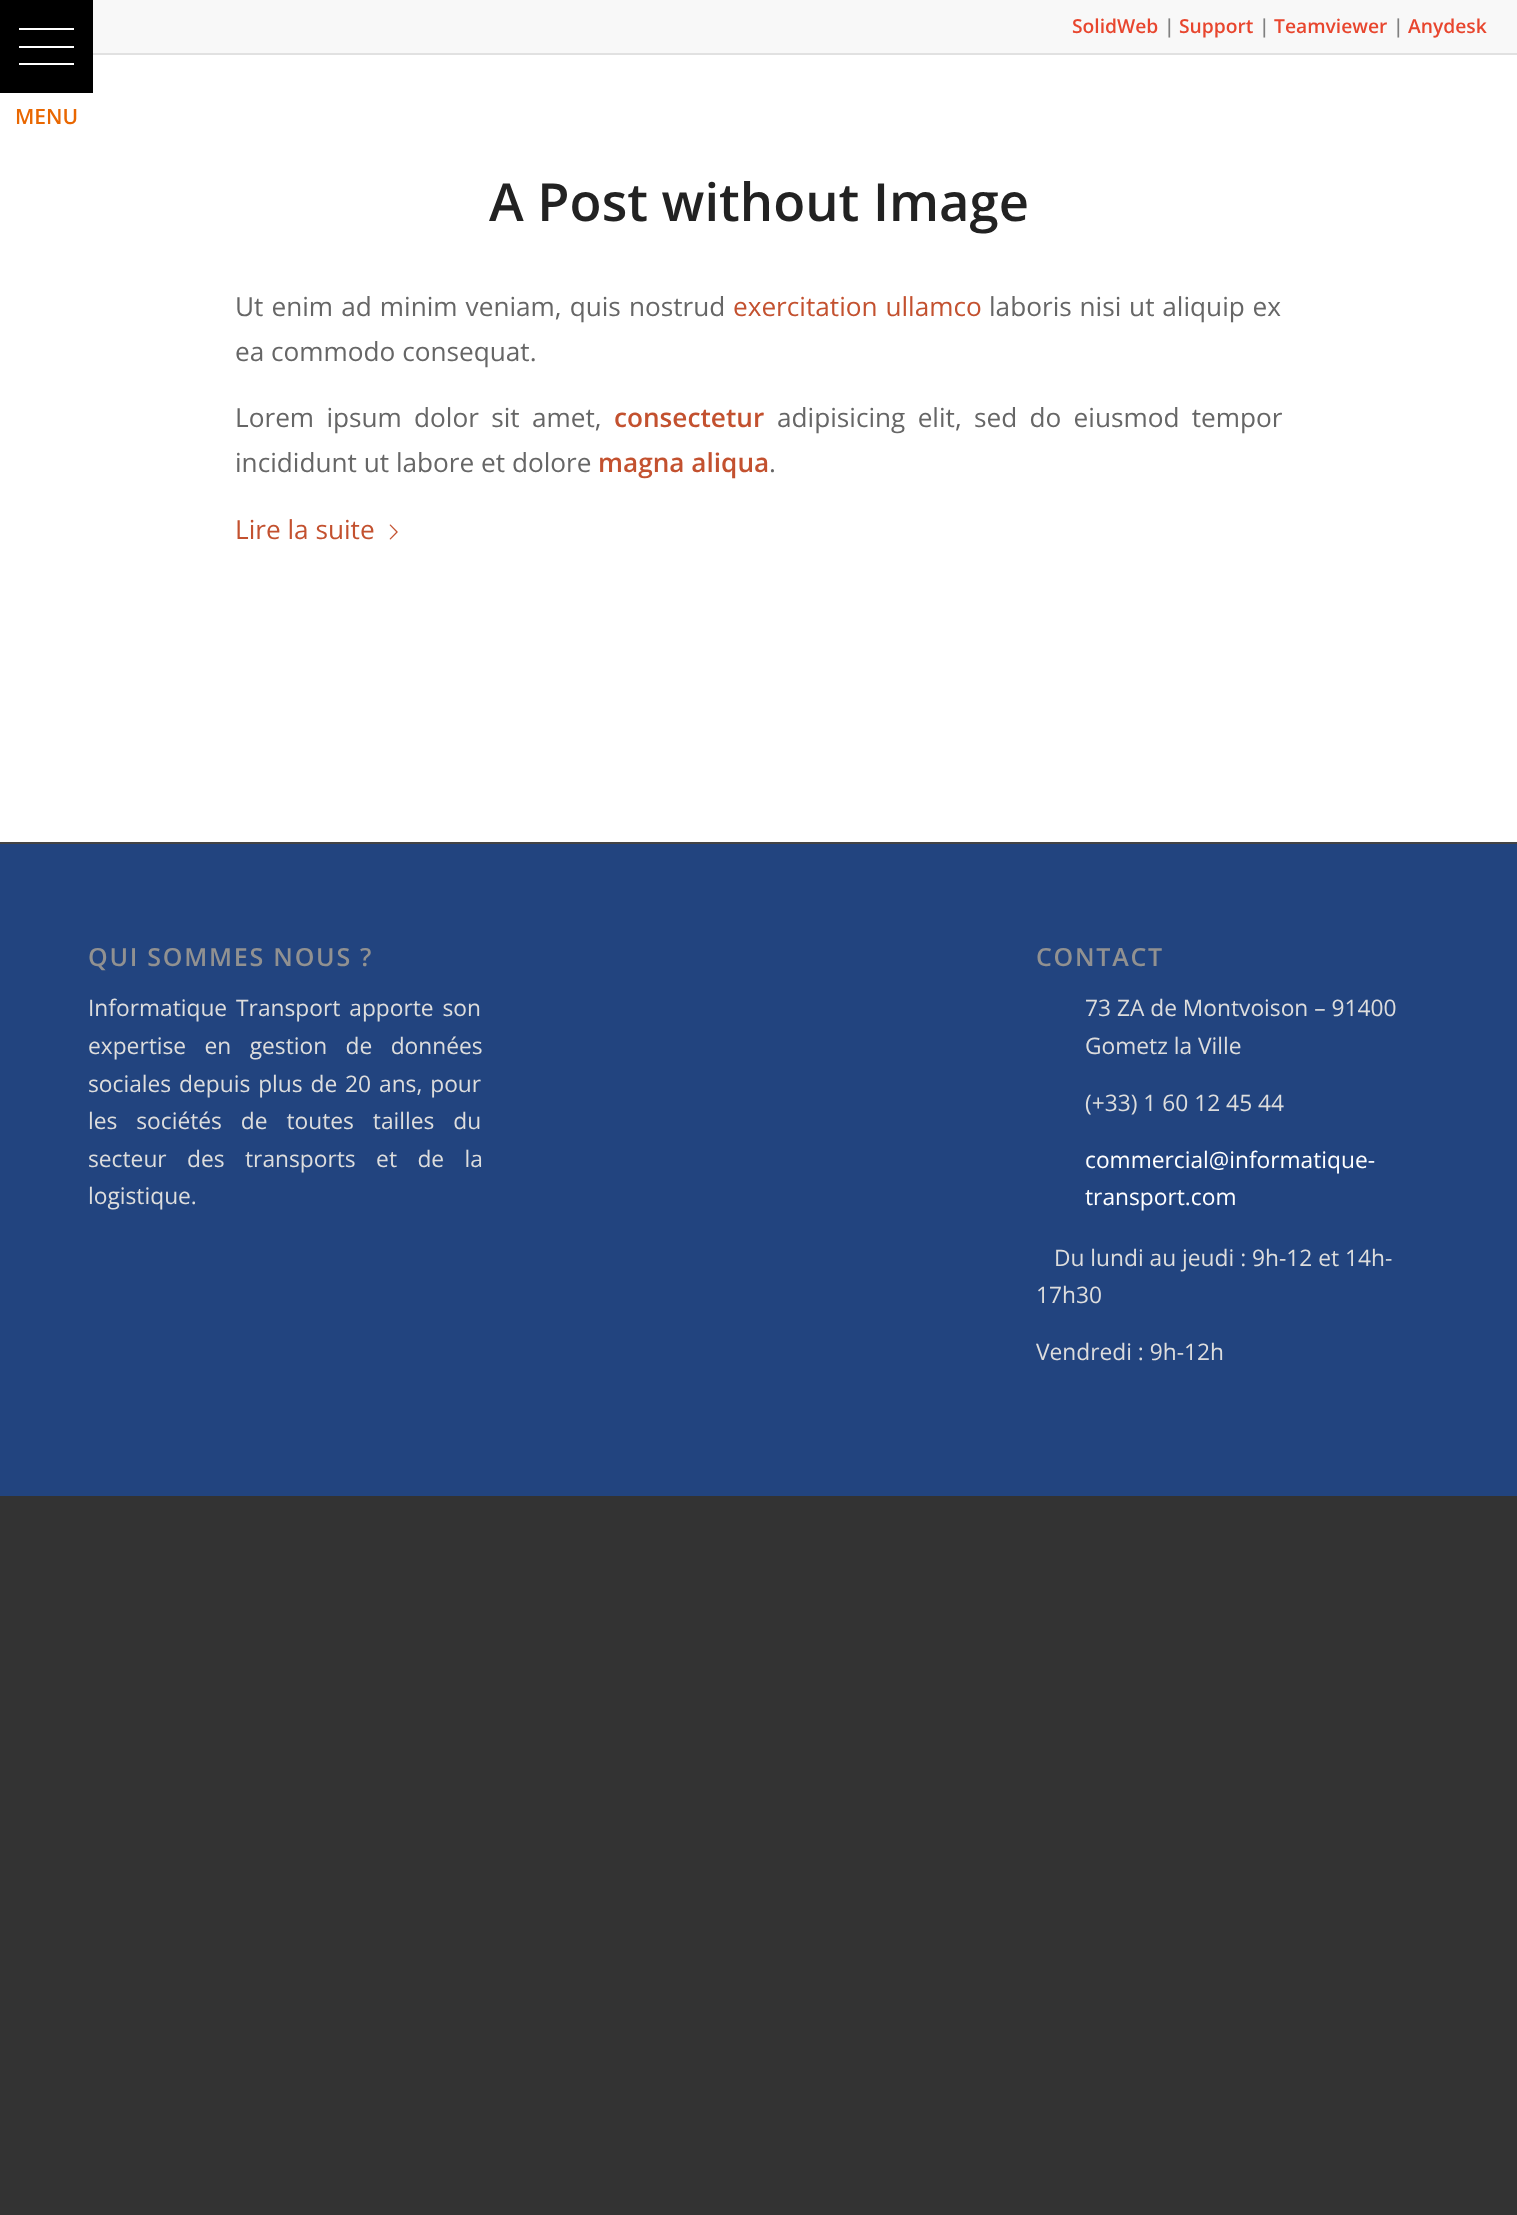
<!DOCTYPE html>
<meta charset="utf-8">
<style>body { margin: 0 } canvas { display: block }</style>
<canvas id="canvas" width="1517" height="2215"></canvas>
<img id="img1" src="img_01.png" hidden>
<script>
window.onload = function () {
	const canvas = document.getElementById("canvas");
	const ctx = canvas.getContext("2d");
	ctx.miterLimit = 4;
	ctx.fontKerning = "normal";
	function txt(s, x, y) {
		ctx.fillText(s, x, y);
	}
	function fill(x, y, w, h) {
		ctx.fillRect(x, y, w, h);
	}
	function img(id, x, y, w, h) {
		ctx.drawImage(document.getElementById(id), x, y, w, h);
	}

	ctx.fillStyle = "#333333";
	fill(0, 0, 1517, 2215);
	ctx.fillStyle = "#FFFFFF";
	fill(0, 55, 1517, 787);
	ctx.fillStyle = "#000000";
	fill(0, 0, 93, 93);
	ctx.fillStyle = "#FFFFFF";
	fill(19, 46, 55, 2);
	fill(19, 28, 55, 2);
	fill(19, 63, 55, 2);
	ctx.fillStyle = "#F8F8F8";
	fill(93, 0, 1424, 53);
	ctx.fillStyle = "#E1E1E1";
	fill(93, 53, 1424, 2);
	img("img1", 389, 524, 9, 16);
	ctx.fillStyle = "#22447F";
	fill(0, 844, 1517, 652);
	ctx.fillStyle = "#444444";
	fill(0, 842, 1517, 2);
	ctx.font = "600 21px Open Sans";
	ctx.fillStyle = "#E96701";
	txt("MENU", 15, 124);
	ctx.font = "600 19.25px Open Sans";
	ctx.fillStyle = "#E8462E";
	txt("SolidWeb", 1072, 33);
	ctx.fillStyle = "#808080";
	txt("|", 1164, 33);
	ctx.fillStyle = "#E8462E";
	txt("Support", 1179, 33);
	ctx.fillStyle = "#808080";
	txt("|", 1259, 33);
	ctx.fillStyle = "#E8462E";
	txt("Teamviewer", 1274, 33);
	ctx.fillStyle = "#808080";
	txt("|", 1393, 33);
	ctx.fillStyle = "#E8462E";
	txt("Anydesk", 1408, 33);
	ctx.font = "600 52.5px Open Sans";
	ctx.fillStyle = "#222222";
	txt("A Post without Image", 489, 221);
	ctx.wordSpacing = "1.25px";
	ctx.font = "26.2px Open Sans";
	ctx.fillStyle = "#666666";
	txt("Ut enim ad minim veniam, quis nostrud", 235, 316);
	ctx.wordSpacing = "1px";
	ctx.fillStyle = "#C3512F";
	txt("exercitation ullamco", 733, 316);
	ctx.fillStyle = "#666666";
	txt("laboris nisi ut aliquip ex", 989, 316);
	ctx.wordSpacing = "0px";
	txt("ea commodo consequat.", 235, 361);
	ctx.wordSpacing = "5.5px";
	txt("Lorem ipsum dolor sit amet,", 235, 427);
	ctx.wordSpacing = "0px";
	ctx.font = "600 26.2px Open Sans";
	ctx.fillStyle = "#C3512F";
	txt("consectetur", 614, 427);
	ctx.wordSpacing = "5.5px";
	ctx.font = "26.2px Open Sans";
	ctx.fillStyle = "#666666";
	txt("adipisicing elit, sed do eiusmod tempor", 777, 427);
	ctx.wordSpacing = "0px";
	txt("incididunt ut labore et dolore", 235, 472);
	ctx.font = "600 26.2px Open Sans";
	ctx.fillStyle = "#C3512F";
	txt("magna aliqua", 598, 472);
	ctx.font = "26.2px Open Sans";
	ctx.fillStyle = "#666666";
	txt(".", 769, 472);
	ctx.fillStyle = "#C3512F";
	txt("Lire la suite", 235, 539);
	ctx.letterSpacing = "1.75px";
	ctx.font = "600 25px Open Sans";
	ctx.fillStyle = "#919191";
	txt("QUI SOMMES NOUS ?", 88, 966);
	ctx.letterSpacing = "0px";
	ctx.wordSpacing = "3px";
	ctx.font = "22.75px Open Sans";
	ctx.fillStyle = "#DDDDDD";
	txt("Informatique Transport apporte son", 88, 1016);
	ctx.wordSpacing = "12.5px";
	txt("expertise en gestion de données", 88, 1054);
	ctx.wordSpacing = "2px";
	txt("sociales depuis plus de 20 ans, pour", 88, 1092);
	ctx.wordSpacing = "13px";
	txt("les sociétés de toutes tailles du", 88, 1129);
	ctx.wordSpacing = "14.5px";
	txt("secteur des transports et de la", 88, 1167);
	ctx.wordSpacing = "0px";
	txt("logistique.", 88, 1204);
	ctx.letterSpacing = "1.75px";
	ctx.font = "600 25px Open Sans";
	ctx.fillStyle = "#919191";
	txt("CONTACT", 1036, 966);
	ctx.letterSpacing = "0px";
	ctx.font = "22.75px Open Sans";
	ctx.fillStyle = "#DDDDDD";
	txt("73 ZA de Montvoison – 91400", 1085, 1016);
	txt("Gometz la Ville", 1085, 1054);
	txt("(+33) 1 60 12 45 44", 1085, 1111);
	ctx.fillStyle = "#FFFFFF";
	txt("commercial@informatique-", 1085, 1168);
	txt("transport.com", 1085, 1205);
	ctx.fillStyle = "#DDDDDD";
	txt("Du lundi au jeudi : 9h-12 et 14h-", 1054, 1266);
	txt("17h30", 1036, 1303);
	txt("Vendredi : 9h-12h", 1036, 1360);
};
</script>
